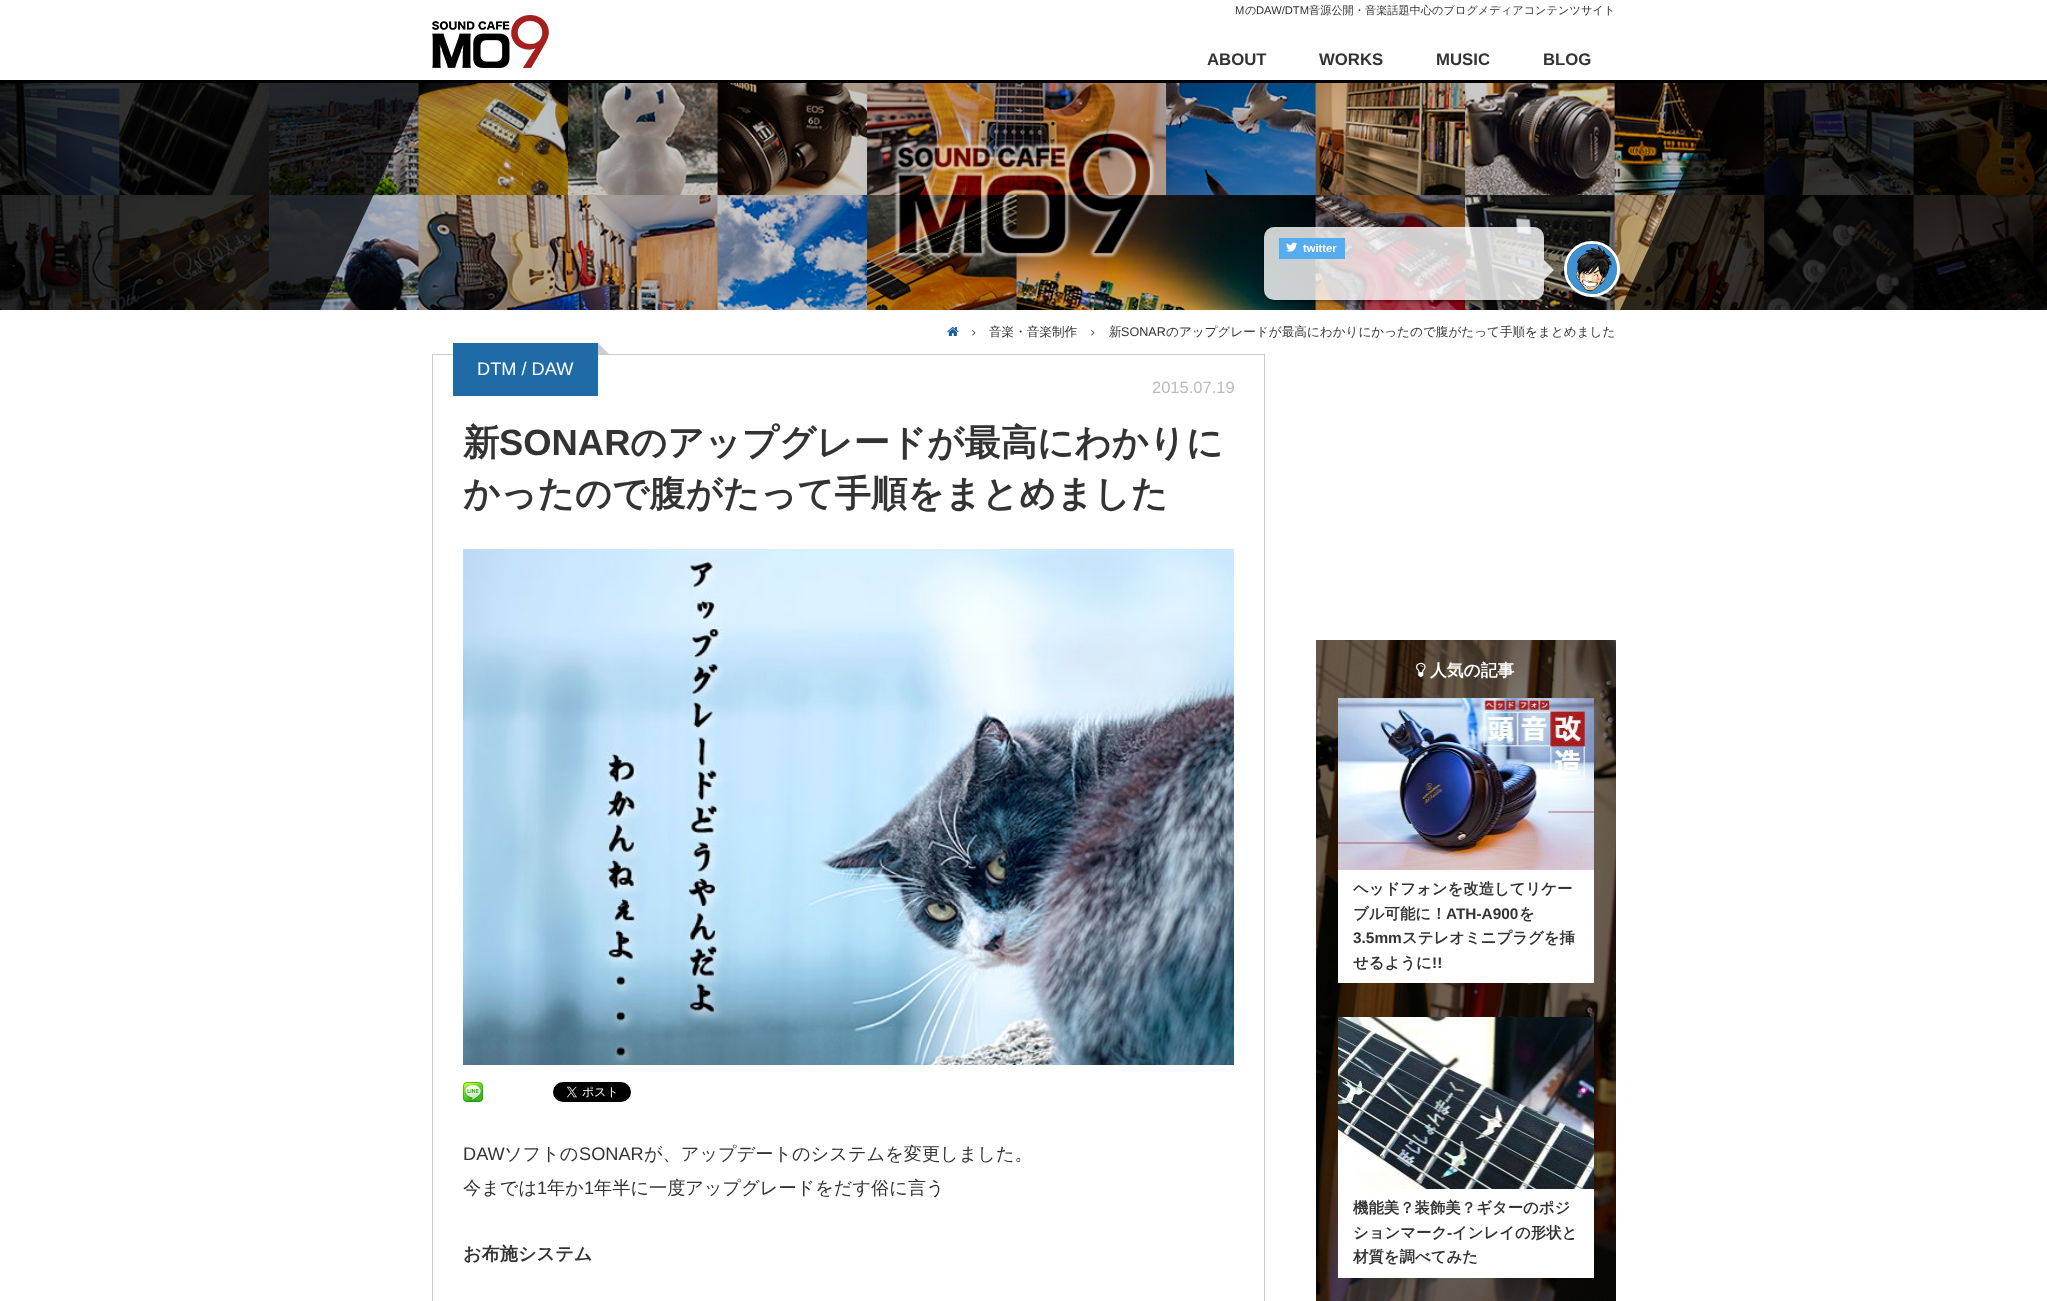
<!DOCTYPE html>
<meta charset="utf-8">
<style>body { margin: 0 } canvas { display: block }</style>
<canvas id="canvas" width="2047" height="1301"></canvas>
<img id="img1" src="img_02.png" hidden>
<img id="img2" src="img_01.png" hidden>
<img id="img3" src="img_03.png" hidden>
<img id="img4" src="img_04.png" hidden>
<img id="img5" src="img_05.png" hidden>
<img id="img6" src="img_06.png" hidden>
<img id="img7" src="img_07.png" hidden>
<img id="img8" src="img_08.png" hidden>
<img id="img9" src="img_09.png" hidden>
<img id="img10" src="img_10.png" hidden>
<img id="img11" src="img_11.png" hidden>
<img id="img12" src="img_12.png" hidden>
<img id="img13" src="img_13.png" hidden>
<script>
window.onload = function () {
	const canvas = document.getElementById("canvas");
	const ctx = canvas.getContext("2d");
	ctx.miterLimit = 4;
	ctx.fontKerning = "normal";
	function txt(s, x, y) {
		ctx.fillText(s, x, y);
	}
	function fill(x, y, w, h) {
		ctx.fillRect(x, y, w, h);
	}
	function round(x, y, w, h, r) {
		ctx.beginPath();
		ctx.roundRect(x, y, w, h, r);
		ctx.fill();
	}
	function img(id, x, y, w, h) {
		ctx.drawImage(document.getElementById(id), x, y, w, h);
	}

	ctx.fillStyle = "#FFFFFF";
	fill(0, 0, 2047, 1301);
	img("img1", 0, 83, 2047, 227);
	ctx.fillStyle = "rgba(0, 0, 0, 0.75)";
	ctx.beginPath();
	ctx.moveTo(-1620, 80);
	ctx.lineTo(427, 80);
	ctx.lineTo(320, 310);
	ctx.lineTo(-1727, 310);
	ctx.closePath();
	ctx.fill();
	ctx.beginPath();
	ctx.moveTo(1727, 80);
	ctx.lineTo(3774, 80);
	ctx.lineTo(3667, 310);
	ctx.lineTo(1620, 310);
	ctx.closePath();
	ctx.fill();
	ctx.fillStyle = "#000000";
	fill(0, 80, 2047, 3);
	img("img2", 432, 15, 117, 53);
	ctx.save();
	ctx.beginPath();
	ctx.moveTo(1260, 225);
	ctx.lineTo(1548, 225);
	ctx.lineTo(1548, 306);
	ctx.lineTo(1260, 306);
	ctx.closePath();
	ctx.moveTo(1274, 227);
	ctx.lineTo(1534, 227);
	ctx.bezierCurveTo(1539.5, 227, 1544, 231.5, 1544, 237);
	ctx.lineTo(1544, 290);
	ctx.bezierCurveTo(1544, 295.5, 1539.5, 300, 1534, 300);
	ctx.lineTo(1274, 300);
	ctx.bezierCurveTo(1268.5, 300, 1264, 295.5, 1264, 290);
	ctx.lineTo(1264, 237);
	ctx.bezierCurveTo(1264, 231.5, 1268.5, 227, 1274, 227);
	ctx.closePath();
	ctx.clip("evenodd");
	ctx.fillStyle = "rgba(0, 0, 0, 0.3)";
	ctx.filter = "blur(1px)";
	ctx.beginPath();
	ctx.roundRect(1264, 229, 280, 73, 10);
	ctx.fill();
	ctx.filter = "none";
	ctx.restore();
	ctx.fillStyle = "rgba(255, 255, 255, 0.8)";
	round(1264, 227, 280, 73, 10);
	ctx.fillStyle = "#55ACEE";
	fill(1279, 238, 66, 21);
	img("img3", 1286, 242, 11, 10);
	ctx.fillStyle = "rgba(255, 255, 255, 0.8)";
	ctx.beginPath();
	ctx.moveTo(1544, 280);
	ctx.lineTo(1544, 260);
	ctx.lineTo(1554, 270);
	ctx.closePath();
	ctx.fill();
	ctx.beginPath();
	ctx.arc(1592, 269, 26.5, 0, Math.PI * 2);
	ctx.strokeStyle = "#FFFFFF";
	ctx.lineWidth = 3;
	ctx.stroke();
	img("img4", 1567, 244, 50, 50);
	img("img5", 947, 327, 12, 9);
	img("img6", 972, 330, 4, 6);
	img("img6", 1091, 330, 4, 6);
	ctx.strokeStyle = "#CCCCCC";
	ctx.lineWidth = 1;
	ctx.strokeRect(432.5, 354.5, 832, 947);
	ctx.fillStyle = "#1F6BA5";
	fill(453, 343, 145, 53);
	ctx.fillStyle = "#CCCCCC";
	ctx.beginPath();
	ctx.moveTo(610, 355);
	ctx.lineTo(598, 355);
	ctx.lineTo(604, 349);
	ctx.closePath();
	ctx.fill();
	ctx.beginPath();
	ctx.moveTo(598, 355);
	ctx.lineTo(598, 343);
	ctx.lineTo(604, 349);
	ctx.closePath();
	ctx.fill();
	img("img7", 463, 549, 771, 516);
	img("img8", 463, 1082, 20, 20);
	img("img9", 553, 1082, 78, 20);
	img("img10", 1316, 640, 300, 661);
	img("img11", 1416, 662, 10, 16);
	img("img12", 1338, 698, 256, 172);
	ctx.fillStyle = "#FFFFFF";
	fill(1338, 870, 256, 113);
	img("img13", 1338, 1017, 256, 172);
	fill(1338, 1189, 256, 89);
	ctx.font = "11.2px Liberation Sans";
	ctx.fillStyle = "#333333";
	txt("M", 1235, 14);
	ctx.font = "500 11.2px WenQuanYi Zen Hei";
	txt("の", 1245, 14);
	ctx.font = "11.2px Liberation Sans";
	txt("DAW/DTM", 1256, 14);
	ctx.font = "500 11.2px WenQuanYi Zen Hei";
	txt("音源公開・音楽話題中心のブログメディアコンテンツサイト", 1309, 14);
	ctx.font = "bold 16.75px Liberation Sans";
	txt("ABOUT", 1207, 65);
	txt("WORKS", 1319, 65);
	txt("MUSIC", 1436, 65);
	txt("BLOG", 1543, 65);
	ctx.font = "bold 11.2px Liberation Sans";
	ctx.fillStyle = "#FFFFFF";
	txt("twitter", 1303, 252);
	ctx.font = "500 12.6px WenQuanYi Zen Hei";
	ctx.fillStyle = "#333333";
	txt("音楽・音楽制作", 989, 336);
	txt("新", 1109, 336);
	ctx.font = "12.6px Liberation Sans";
	txt("SONAR", 1121, 336);
	ctx.font = "500 12.6px WenQuanYi Zen Hei";
	txt("のアップグレードが最高にわかりにかったので腹がたって手順をまとめました", 1166, 336);
	ctx.font = "18.2px Liberation Sans";
	ctx.fillStyle = "#FFFFFF";
	txt("DTM / DAW", 477, 375);
	ctx.font = "16.5px Liberation Sans";
	ctx.fillStyle = "#BBBBBB";
	txt("2015.07.19", 1152, 393);
	ctx.font = "bold 36.4px WenQuanYi Zen Hei";
	ctx.fillStyle = "#333333";
	txt("新", 463, 455);
	ctx.font = "bold 36.4px Liberation Sans";
	txt("SONAR", 499, 455);
	ctx.font = "bold 36.4px WenQuanYi Zen Hei";
	txt("のアップグレードが最高にわかりに", 630, 455);
	txt("かったので腹がたって手順をまとめました", 463, 506);
	ctx.font = "18.2px Liberation Sans";
	txt("DAW", 463, 1160);
	ctx.font = "500 18.2px WenQuanYi Zen Hei";
	txt("ソフトの", 504, 1160);
	ctx.font = "18.2px Liberation Sans";
	txt("SONAR", 579, 1160);
	ctx.font = "500 18.2px WenQuanYi Zen Hei";
	txt("が、アップデートのシステムを変更しました。", 644, 1160);
	txt("今までは", 463, 1194);
	ctx.font = "18.2px Liberation Sans";
	txt("1", 537, 1194);
	ctx.font = "500 18.2px WenQuanYi Zen Hei";
	txt("年か", 547, 1194);
	ctx.font = "18.2px Liberation Sans";
	txt("1", 584, 1194);
	ctx.font = "500 18.2px WenQuanYi Zen Hei";
	txt("年半に一度アップグレードをだす俗に言う", 594, 1194);
	ctx.font = "bold 18.2px WenQuanYi Zen Hei";
	txt("お布施システム", 463, 1260);
	ctx.font = "bold 16.75px WenQuanYi Zen Hei";
	ctx.fillStyle = "#FFFFFF";
	txt("人気の記事", 1430, 676);
	ctx.font = "bold 15.4px WenQuanYi Zen Hei";
	ctx.fillStyle = "#333333";
	txt("ヘッドフォンを改造してリケー", 1353, 894);
	txt("ブル可能に！", 1353, 919);
	ctx.font = "bold 15.4px Liberation Sans";
	txt("ATH-A900", 1446, 919);
	ctx.font = "bold 15.4px WenQuanYi Zen Hei";
	txt("を", 1519, 919);
	ctx.font = "bold 15.4px Liberation Sans";
	txt("3.5mm", 1353, 943);
	ctx.font = "bold 15.4px WenQuanYi Zen Hei";
	txt("ステレオミニプラグを挿", 1402, 943);
	txt("せるように", 1353, 968);
	ctx.font = "bold 15.4px Liberation Sans";
	txt("!!", 1432, 968);
	ctx.font = "bold 15.4px WenQuanYi Zen Hei";
	txt("機能美？装飾美？ギターのポジ", 1353, 1213);
	txt("ションマーク", 1353, 1238);
	ctx.font = "bold 15.4px Liberation Sans";
	txt("-", 1447, 1238);
	ctx.font = "bold 15.4px WenQuanYi Zen Hei";
	txt("インレイの形状と", 1452, 1238);
	txt("材質を調べてみた", 1353, 1262);
};
</script>
